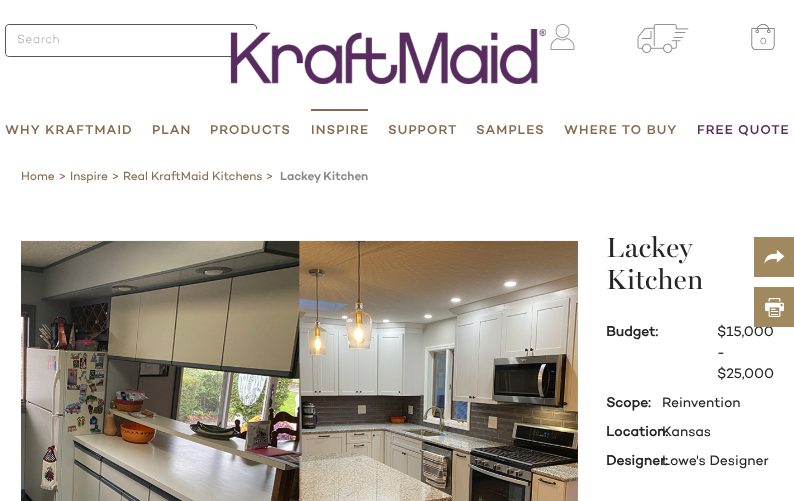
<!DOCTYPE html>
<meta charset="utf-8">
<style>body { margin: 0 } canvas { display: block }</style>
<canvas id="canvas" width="794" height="501"></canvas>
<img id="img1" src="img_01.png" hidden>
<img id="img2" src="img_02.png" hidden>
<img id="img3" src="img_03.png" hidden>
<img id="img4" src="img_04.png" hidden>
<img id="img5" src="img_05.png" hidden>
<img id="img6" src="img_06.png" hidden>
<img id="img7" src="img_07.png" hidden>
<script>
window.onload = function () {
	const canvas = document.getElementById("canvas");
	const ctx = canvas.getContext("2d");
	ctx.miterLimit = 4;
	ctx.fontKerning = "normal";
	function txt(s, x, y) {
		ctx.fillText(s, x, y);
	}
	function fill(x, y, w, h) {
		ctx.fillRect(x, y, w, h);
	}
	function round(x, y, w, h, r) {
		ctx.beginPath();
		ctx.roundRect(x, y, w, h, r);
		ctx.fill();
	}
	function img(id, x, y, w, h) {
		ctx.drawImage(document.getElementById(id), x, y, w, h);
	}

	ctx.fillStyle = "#FFFFFF";
	fill(0, 0, 794, 501);
	ctx.beginPath();
	ctx.roundRect(5.5, 24.5, 251, 32, 3.5);
	ctx.strokeStyle = "#545659";
	ctx.stroke();
	round(6, 25, 250, 31, 4);
	img("img1", 230, 29, 316, 55);
	img("img2", 550, 24, 25, 26);
	img("img3", 637, 24, 52, 29);
	img("img4", 751, 24, 24, 26);
	ctx.fillStyle = "#876B4F";
	fill(311, 109, 57, 2);
	img("img5", 21, 240, 557, 261);
	ctx.fillStyle = "#A1895F";
	fill(754, 237, 40, 40);
	img("img6", 764, 250, 21, 14);
	ctx.letterSpacing = "0.5px";
	ctx.font = "300 12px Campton";
	ctx.fillStyle = "#999999";
	txt("Search", 17, 43);
	ctx.letterSpacing = "0px";
	ctx.font = "300 9px Campton";
	ctx.fillStyle = "#545659";
	txt("0", 760, 44);
	ctx.letterSpacing = "1.1px";
	ctx.font = "500 13px 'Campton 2'";
	ctx.fillStyle = "#876B4F";
	txt("WHY KRAFTMAID", 5, 134);
	txt("PLAN", 152, 134);
	txt("PRODUCTS", 210, 134);
	txt("INSPIRE", 311, 134);
	txt("SUPPORT", 388, 134);
	txt("SAMPLES", 476, 134);
	txt("WHERE TO BUY", 564, 134);
	ctx.fillStyle = "#562E5E";
	txt("FREE QUOTE", 697, 134);
	ctx.letterSpacing = "0px";
	ctx.font = "500 12px Campton";
	ctx.fillStyle = "#876B4F";
	txt("Home", 21, 180);
	txt(">", 59, 180);
	txt("Inspire", 70, 180);
	txt(">", 112, 180);
	txt("Real KraftMaid Kitchens", 123, 180);
	txt(">", 266, 180);
	ctx.font = "600 12px Campton";
	ctx.fillStyle = "#8A8A8D";
	txt("Lackey Kitchen", 280, 180);
	ctx.letterSpacing = "0.25px";
	ctx.font = "28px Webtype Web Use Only";
	ctx.fillStyle = "#252525";
	txt("Lackey", 606, 257);
	txt("Kitchen", 606, 289);
	ctx.letterSpacing = "0px";
	ctx.font = "bold 14px Campton";
	txt("Budget:", 606, 336);
	ctx.font = "500 14px Campton";
	txt("$15,000", 717, 336);
	ctx.fillStyle = "#A1895F";
	fill(754, 287, 40, 40);
	img("img7", 765, 298, 19, 19);
	ctx.fillStyle = "#252525";
	txt("-", 717, 357);
	txt("$25,000", 717, 378);
	ctx.font = "bold 14px Campton";
	txt("Scope:", 606, 407);
	ctx.font = "500 14px Campton";
	txt("Reinvention", 662, 407);
	ctx.font = "bold 14px Campton";
	txt("Location:", 606, 436);
	ctx.font = "500 14px Campton";
	txt("Kansas", 662, 436);
	ctx.font = "bold 14px Campton";
	txt("Designer:", 606, 465);
	ctx.font = "500 14px Campton";
	txt("Lowe's Designer", 662, 465);
};
</script>
